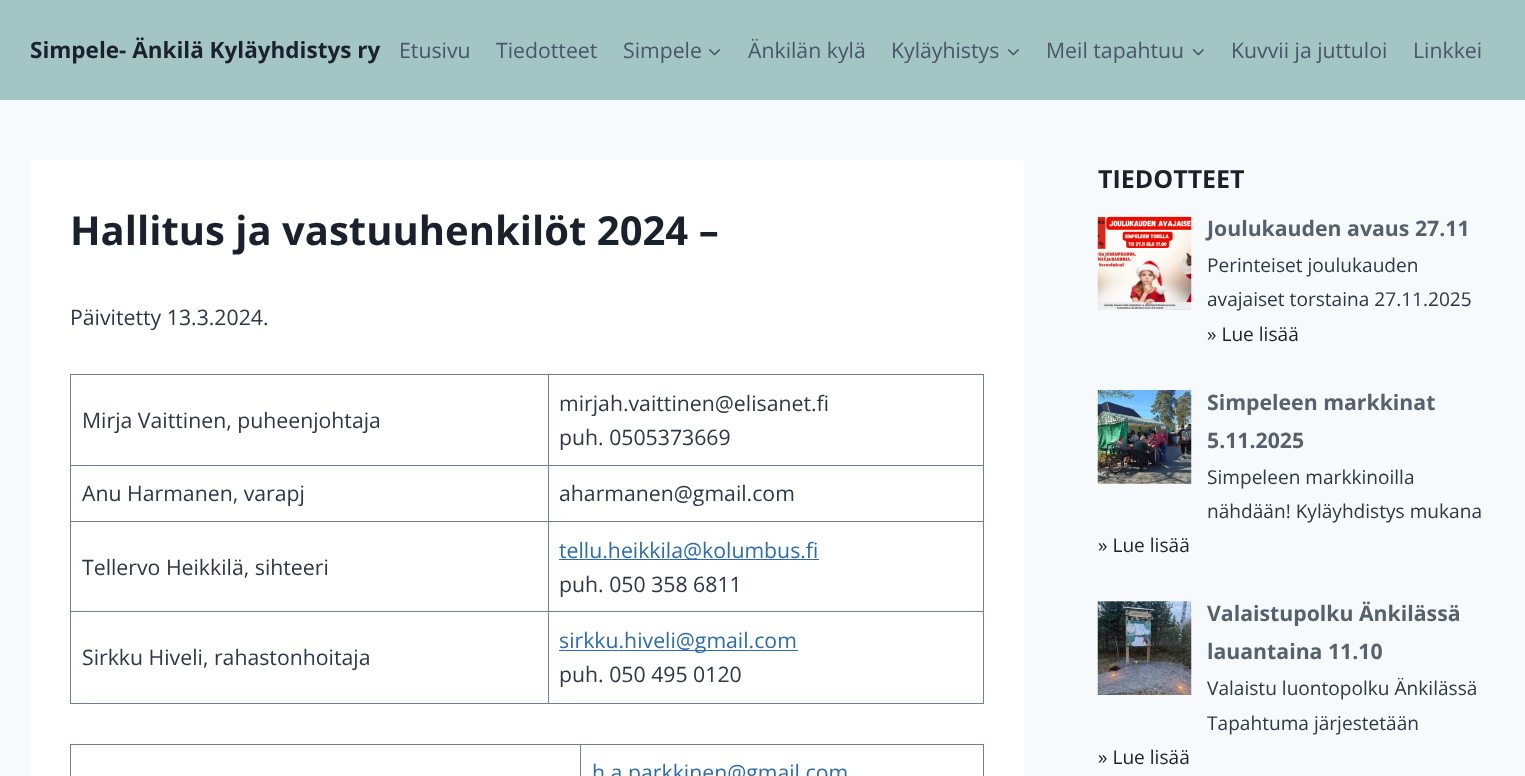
<!DOCTYPE html>
<meta charset="utf-8">
<style>body { margin: 0 } canvas { display: block }</style>
<canvas id="canvas" width="1525" height="776"></canvas>
<img id="img1" src="img_01.png" hidden>
<img id="img2" src="img_02.png" hidden>
<img id="img3" src="img_03.png" hidden>
<img id="img4" src="img_04.png" hidden>
<img id="img5" src="img_05.png" hidden>
<script>
window.onload = function () {
	const canvas = document.getElementById("canvas");
	const ctx = canvas.getContext("2d");
	ctx.miterLimit = 4;
	ctx.fontKerning = "normal";
	function txt(s, x, y) {
		ctx.fillText(s, x, y);
	}
	function fill(x, y, w, h) {
		ctx.fillRect(x, y, w, h);
	}
	function round(x, y, w, h, r) {
		ctx.beginPath();
		ctx.roundRect(x, y, w, h, r);
		ctx.fill();
	}
	function img(id, x, y, w, h) {
		ctx.drawImage(document.getElementById(id), x, y, w, h);
	}

	ctx.fillStyle = "#F7FAFC";
	fill(0, 0, 1525, 776);
	ctx.fillStyle = "#A3C6C4";
	fill(0, 0, 1525, 100);
	img("img1", 709, 49, 12, 7);
	img("img2", 1007, 49, 12, 7);
	img("img2", 1192, 49, 12, 7);
	ctx.fillStyle = "#FFFFFF";
	round(30, 160, 994, 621, 5);
	ctx.fillStyle = "#718096";
	fill(548, 374, 436, 1);
	fill(548, 465, 436, 1);
	fill(548, 521, 436, 1);
	fill(548, 611, 436, 1);
	fill(983, 611, 1, 93);
	fill(548, 703, 436, 1);
	fill(548, 611, 1, 93);
	fill(70, 611, 479, 1);
	fill(548, 521, 1, 92);
	fill(70, 521, 479, 1);
	fill(548, 465, 1, 58);
	fill(70, 465, 479, 1);
	fill(548, 374, 1, 92);
	fill(70, 374, 479, 1);
	fill(70, 703, 479, 1);
	fill(70, 611, 1, 93);
	fill(70, 521, 1, 92);
	fill(70, 465, 1, 58);
	fill(70, 374, 1, 92);
	fill(983, 521, 1, 92);
	fill(983, 465, 1, 58);
	fill(983, 374, 1, 92);
	ctx.fillStyle = "#2B6CB0";
	fill(559, 559, 260, 1);
	fill(559, 650, 239, 1);
	ctx.fillStyle = "#718096";
	fill(580, 744, 404, 1);
	fill(580, 744, 1, 32);
	fill(70, 744, 511, 1);
	fill(70, 744, 1, 32);
	fill(983, 744, 1, 32);
	img("img3", 1097, 216, 95, 94);
	img("img4", 1097, 390, 95, 94);
	img("img5", 1097, 601, 95, 94);
	ctx.font = "bold 22.5px Open Sans";
	ctx.fillStyle = "#1A202C";
	txt("Simpele- Änkilä Kyläyhdistys ry", 30, 58);
	ctx.font = "21.25px Open Sans";
	ctx.fillStyle = "#4A5568";
	txt("Etusivu", 399, 58);
	txt("Tiedotteet", 496, 58);
	txt("Simpele", 623, 58);
	txt("Änkilän kylä", 748, 58);
	txt("Kyläyhistys", 891, 58);
	txt("Meil tapahtuu", 1046, 58);
	txt("Kuvvii ja juttuloi", 1231, 58);
	txt("Linkkei", 1413, 58);
	ctx.font = "bold 40px Open Sans";
	ctx.fillStyle = "#1A202C";
	txt("Hallitus ja vastuuhenkilöt 2024 –", 70, 245);
	ctx.font = "21.25px Open Sans";
	ctx.fillStyle = "#2D3748";
	txt("Päivitetty 13.3.2024.", 70, 325);
	txt("Mirja Vaittinen, puheenjohtaja", 82, 428);
	txt("mirjah.vaittinen@elisanet.fi", 559, 411);
	txt("puh. 0505373669", 559, 445);
	txt("Anu Harmanen, varapj", 82, 501);
	txt("aharmanen@gmail.com", 559, 501);
	txt("Tellervo Heikkilä, sihteeri", 82, 575);
	ctx.fillStyle = "#2B6CB0";
	txt("tellu.heikkila@kolumbus.fi", 559, 558);
	ctx.fillStyle = "#2D3748";
	txt("puh. 050 358 6811", 559, 592);
	txt("Sirkku Hiveli, rahastonhoitaja", 82, 665);
	ctx.fillStyle = "#2B6CB0";
	txt("sirkku.hiveli@gmail.com", 559, 648);
	ctx.fillStyle = "#2D3748";
	txt("puh. 050 495 0120", 559, 682);
	ctx.fillStyle = "#2B6CB0";
	txt("h.a.parkkinen@gmail.com", 592, 780);
	ctx.font = "bold 25px Open Sans";
	ctx.fillStyle = "#1A202C";
	txt("TIEDOTTEET", 1098, 188);
	ctx.font = "bold 21.25px Open Sans";
	ctx.fillStyle = "#56616D";
	txt("Joulukauden avaus 27.11", 1207, 236);
	ctx.font = "19.1px Open Sans";
	ctx.fillStyle = "#2D3748";
	txt("Perinteiset joulukauden", 1207, 272);
	txt("avajaiset torstaina 27.11.2025", 1207, 306);
	ctx.fillStyle = "#1A202C";
	txt("» Lue lisää", 1207, 341);
	ctx.font = "bold 21.25px Open Sans";
	ctx.fillStyle = "#56616D";
	txt("Simpeleen markkinat", 1207, 410);
	txt("5.11.2025", 1207, 448);
	ctx.font = "19.1px Open Sans";
	ctx.fillStyle = "#2D3748";
	txt("Simpeleen markkinoilla", 1207, 484);
	txt("nähdään! Kyläyhdistys mukana", 1207, 518);
	ctx.fillStyle = "#1A202C";
	txt("» Lue lisää", 1098, 552);
	ctx.font = "bold 21.25px Open Sans";
	ctx.fillStyle = "#56616D";
	txt("Valaistupolku Änkilässä", 1207, 621);
	txt("lauantaina 11.10", 1207, 659);
	ctx.font = "19.1px Open Sans";
	ctx.fillStyle = "#2D3748";
	txt("Valaistu luontopolku Änkilässä", 1207, 695);
	txt("Tapahtuma järjestetään", 1207, 730);
	ctx.fillStyle = "#1A202C";
	txt("» Lue lisää", 1098, 764);
};
</script>
